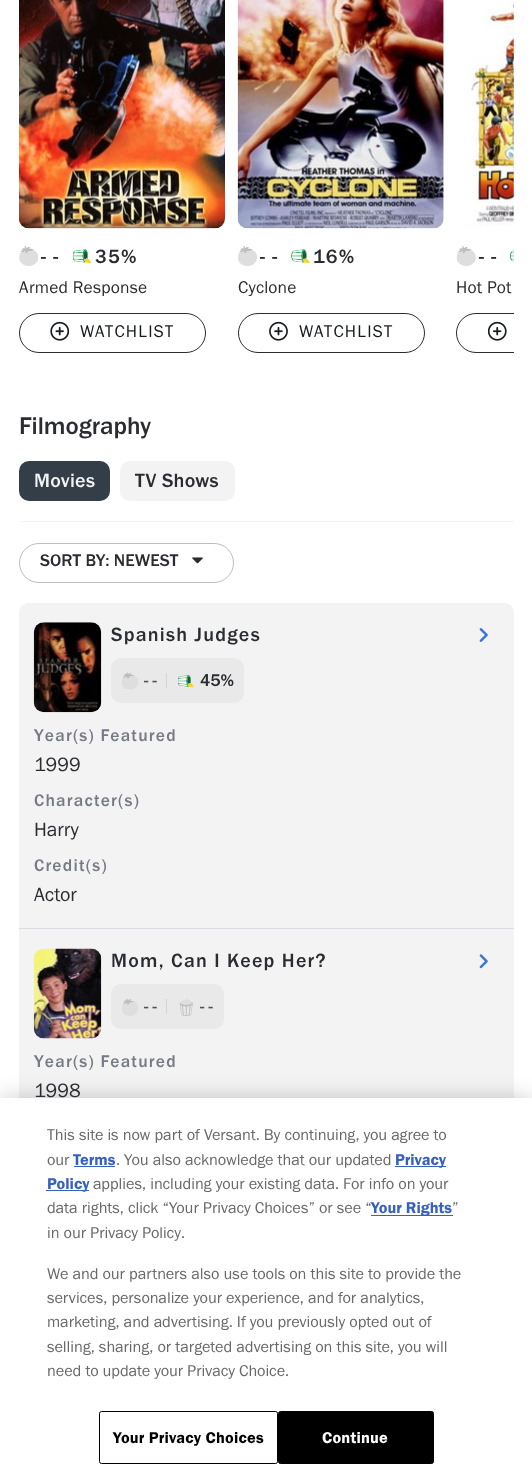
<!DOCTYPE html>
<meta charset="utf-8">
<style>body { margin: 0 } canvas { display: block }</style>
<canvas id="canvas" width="532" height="1483"></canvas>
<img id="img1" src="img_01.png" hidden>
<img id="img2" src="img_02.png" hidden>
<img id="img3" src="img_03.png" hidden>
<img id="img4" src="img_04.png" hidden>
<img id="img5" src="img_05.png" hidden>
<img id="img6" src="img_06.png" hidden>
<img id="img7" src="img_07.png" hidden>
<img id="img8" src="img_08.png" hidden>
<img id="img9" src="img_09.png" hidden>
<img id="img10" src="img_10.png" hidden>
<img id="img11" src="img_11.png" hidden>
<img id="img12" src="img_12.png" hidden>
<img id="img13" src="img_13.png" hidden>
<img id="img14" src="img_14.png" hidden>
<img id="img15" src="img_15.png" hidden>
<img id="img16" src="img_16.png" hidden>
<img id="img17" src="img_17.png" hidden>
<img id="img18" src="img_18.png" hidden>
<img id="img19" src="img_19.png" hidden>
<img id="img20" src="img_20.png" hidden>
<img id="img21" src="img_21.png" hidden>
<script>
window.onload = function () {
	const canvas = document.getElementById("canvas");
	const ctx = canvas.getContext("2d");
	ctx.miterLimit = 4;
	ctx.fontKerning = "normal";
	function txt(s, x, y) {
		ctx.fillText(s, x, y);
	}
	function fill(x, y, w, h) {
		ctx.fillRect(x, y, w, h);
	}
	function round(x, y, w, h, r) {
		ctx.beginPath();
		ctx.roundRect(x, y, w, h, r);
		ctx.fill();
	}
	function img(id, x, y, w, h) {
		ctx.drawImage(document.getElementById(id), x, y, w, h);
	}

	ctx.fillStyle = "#FFFFFF";
	fill(0, 0, 532, 1483);
	img("img1", 19, 0, 206, 229);
	img("img2", 19, 246, 19, 20);
	img("img3", 73, 249, 18, 15);
	ctx.beginPath();
	ctx.roundRect(19.5, 313.5, 186, 39, 19.5);
	ctx.strokeStyle = "#2A2C32";
	ctx.stroke();
	img("img4", 50, 321, 20, 20);
	img("img5", 237, 0, 207, 229);
	img("img6", 238, 246, 19, 20);
	img("img7", 291, 249, 19, 15);
	ctx.beginPath();
	ctx.roundRect(238.5, 313.5, 186, 39, 19.5);
	ctx.stroke();
	img("img8", 269, 321, 19, 20);
	img("img9", 464, 0, 50, 228);
	img("img10", 456, 246, 20, 20);
	img("img11", 510, 250, 4, 12);
	ctx.save();
	ctx.beginPath();
	ctx.rect(19, 0, 495, 353);
	ctx.clip();
	ctx.beginPath();
	ctx.roundRect(456.5, 313.5, 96, 39, 19.5);
	ctx.stroke();
	ctx.restore();
	img("img12", 488, 321, 19, 20);
	ctx.fillStyle = "#F3F3F3";
	fill(19, 521, 495, 1);
	ctx.fillStyle = "#333E48";
	round(19, 461, 91, 40, 10);
	ctx.fillStyle = "#F3F3F3";
	round(120, 461, 115, 40, 10);
	ctx.beginPath();
	ctx.roundRect(19.5, 543.5, 214, 39, 19.5);
	ctx.strokeStyle = "#BCBDBE";
	ctx.stroke();
	img("img13", 192, 557, 11, 7);
	round(19, 603, 495, 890, 10);
	ctx.fillStyle = "#DCDCE6";
	fill(19, 928, 495, 1);
	ctx.fillStyle = "#F3F3F3";
	round(19, 603, 495, 325, 10);
	img("img14", 33, 622, 69, 91);
	ctx.fillStyle = "#E9E9EA";
	round(111, 658, 133, 45, 10);
	img("img15", 122, 672, 16, 18);
	ctx.fillStyle = "#D4D5D6";
	fill(166, 673, 1, 15);
	img("img16", 178, 675, 16, 13);
	img("img17", 479, 628, 9, 14);
	img("img18", 33, 948, 69, 91);
	ctx.fillStyle = "#E9E9EA";
	round(111, 984, 113, 45, 10);
	img("img19", 122, 998, 16, 18);
	ctx.fillStyle = "#D4D5D6";
	fill(166, 999, 1, 15);
	img("img20", 179, 999, 14, 17);
	img("img21", 479, 954, 9, 15);
	ctx.fillStyle = "rgba(0, 0, 0, 0.2)";
	ctx.filter = "blur(11px)";
	ctx.beginPath();
	ctx.rect(0, 1098, 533, 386);
	ctx.fill();
	ctx.filter = "none";
	ctx.fillStyle = "#FFFFFF";
	fill(0, 1098, 532, 385);
	ctx.fillStyle = "#3860BE";
	fill(74, 1166, 41, 1);
	fill(395, 1166, 51, 1);
	fill(46, 1190, 43, 1);
	fill(371, 1215, 82, 1);
	ctx.beginPath();
	ctx.roundRect(99.5, 1411.5, 178, 52, 2);
	ctx.strokeStyle = "#000000";
	ctx.stroke();
	ctx.fillStyle = "#000000";
	ctx.beginPath();
	ctx.roundRect(278.5, 1411.5, 155, 52, 2);
	ctx.fill();
	ctx.stroke();
	ctx.letterSpacing = "1.25px";
	ctx.font = "500 20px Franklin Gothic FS";
	ctx.fillStyle = "#2A2C32";
	txt("- -", 41, 263);
	txt("35%", 95, 263);
	ctx.letterSpacing = "0.25px";
	ctx.font = "17.5px Franklin Gothic FS";
	txt("Armed Response", 19, 293);
	ctx.letterSpacing = "1.25px";
	ctx.fillStyle = "#171C20";
	txt("WATCHLIST", 80, 337);
	ctx.font = "500 20px Franklin Gothic FS";
	ctx.fillStyle = "#2A2C32";
	txt("- -", 260, 263);
	txt("16%", 313, 263);
	ctx.letterSpacing = "0.25px";
	ctx.font = "17.5px Franklin Gothic FS";
	txt("Cyclone", 238, 293);
	ctx.letterSpacing = "1.25px";
	ctx.fillStyle = "#171C20";
	txt("WATCHLIST", 299, 337);
	ctx.font = "500 20px Franklin Gothic FS";
	ctx.fillStyle = "#2A2C32";
	txt("- -", 479, 263);
	ctx.letterSpacing = "0.25px";
	ctx.font = "17.5px Franklin Gothic FS";
	txt("Hot Pot", 456, 293);
	ctx.letterSpacing = "0px";
	ctx.font = "500 25px Franklin Gothic FS";
	txt("Filmography", 19, 434);
	ctx.letterSpacing = "0.25px";
	ctx.font = "500 20px Franklin Gothic FS";
	ctx.fillStyle = "#F3F3F3";
	txt("Movies", 34, 487);
	ctx.fillStyle = "#2A2C32";
	txt("TV Shows", 135, 487);
	ctx.letterSpacing = "0px";
	ctx.font = "500 17.5px Franklin Gothic FS";
	txt("SORT BY: NEWEST", 40, 566);
	ctx.letterSpacing = "1.25px";
	ctx.font = "500 20px Franklin Gothic FS";
	txt("Spanish Judges", 111, 641);
	ctx.letterSpacing = "0px";
	ctx.font = "500 17.5px Franklin Gothic FS";
	ctx.fillStyle = "#505257";
	txt("- -", 144, 686);
	ctx.fillStyle = "#2A2C32";
	txt("45%", 200, 686);
	ctx.letterSpacing = "1.25px";
	ctx.fillStyle = "#757A84";
	txt("Year(s) Featured", 34, 741);
	ctx.letterSpacing = "0px";
	ctx.font = "20px Franklin Gothic FS";
	ctx.fillStyle = "#2A2C32";
	txt("1999", 34, 771);
	ctx.letterSpacing = "1.25px";
	ctx.font = "500 17.5px Franklin Gothic FS";
	ctx.fillStyle = "#757A84";
	txt("Character(s)", 34, 806);
	ctx.letterSpacing = "0px";
	ctx.font = "20px Franklin Gothic FS";
	ctx.fillStyle = "#2A2C32";
	txt("Harry", 34, 836);
	ctx.letterSpacing = "1.25px";
	ctx.font = "500 17.5px Franklin Gothic FS";
	ctx.fillStyle = "#757A84";
	txt("Credit(s)", 34, 871);
	ctx.letterSpacing = "0px";
	ctx.font = "20px Franklin Gothic FS";
	ctx.fillStyle = "#2A2C32";
	txt("Actor", 34, 901);
	ctx.letterSpacing = "1.25px";
	ctx.font = "500 20px Franklin Gothic FS";
	txt("Mom, Can I Keep Her?", 111, 967);
	ctx.letterSpacing = "0px";
	ctx.font = "500 17.5px Franklin Gothic FS";
	ctx.fillStyle = "#505257";
	txt("- -", 144, 1012);
	txt("- -", 200, 1012);
	ctx.letterSpacing = "1.25px";
	ctx.fillStyle = "#757A84";
	txt("Year(s) Featured", 34, 1067);
	ctx.letterSpacing = "0px";
	ctx.font = "20px Franklin Gothic FS";
	ctx.fillStyle = "#2A2C32";
	txt("1998", 34, 1097);
	ctx.font = "16.25px Franklin Gothic FS";
	ctx.fillStyle = "#696969";
	txt("This site is now part of Versant. By continuing, you agree to", 47, 1140);
	txt("our", 47, 1165);
	ctx.font = "600 16.25px Franklin Gothic FS";
	ctx.fillStyle = "#3860BE";
	txt("Terms", 73, 1165);
	ctx.font = "16.25px Franklin Gothic FS";
	ctx.fillStyle = "#696969";
	txt(". You also acknowledge that our updated", 116, 1165);
	ctx.font = "600 16.25px Franklin Gothic FS";
	ctx.fillStyle = "#3860BE";
	txt("Privacy", 395, 1165);
	txt("Policy", 47, 1189);
	ctx.font = "16.25px Franklin Gothic FS";
	ctx.fillStyle = "#696969";
	txt("applies, including your existing data. For info on your", 93, 1189);
	txt("data rights, click “Your Privacy Choices” or see “", 47, 1213);
	ctx.font = "600 16.25px Franklin Gothic FS";
	ctx.fillStyle = "#3860BE";
	txt("Your Rights", 371, 1213);
	ctx.font = "16.25px Franklin Gothic FS";
	ctx.fillStyle = "#696969";
	txt("”", 452, 1213);
	txt("in our Privacy Policy.", 47, 1238);
	txt("We and our partners also use tools on this site to provide the", 47, 1279);
	txt("services, personalize your experience, and for analytics,", 47, 1303);
	txt("marketing, and advertising. If you previously opted out of", 47, 1327);
	txt("selling, sharing, or targeted advertising on this site, you will", 47, 1352);
	txt("need to update your Privacy Choice.", 47, 1376);
	ctx.letterSpacing = "0.2px";
	ctx.font = "600 16.25px Franklin Gothic FS";
	ctx.fillStyle = "#000000";
	txt("Your Privacy Choices", 113, 1443);
	ctx.fillStyle = "#FFFFFF";
	txt("Continue", 322, 1443);
};
</script>
